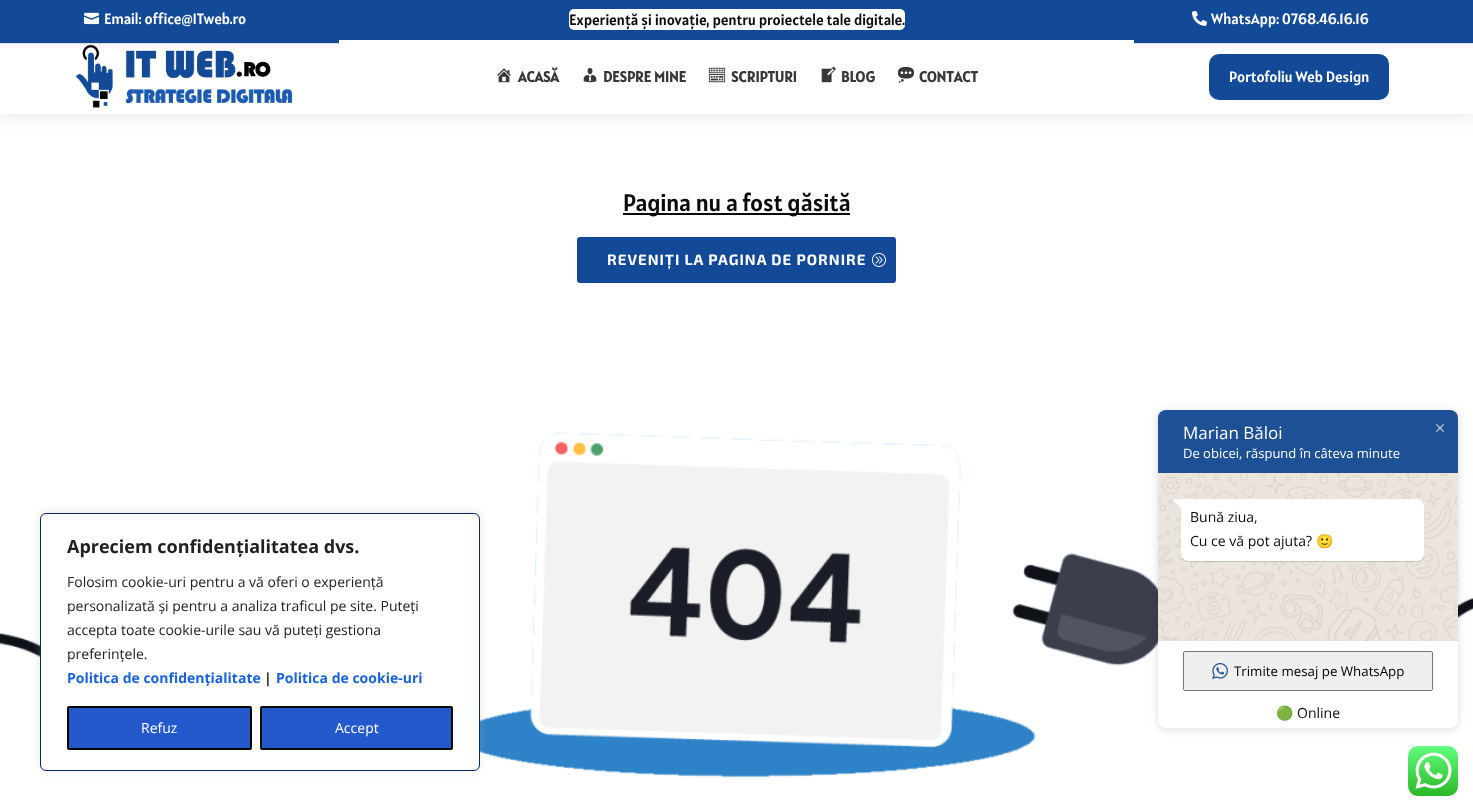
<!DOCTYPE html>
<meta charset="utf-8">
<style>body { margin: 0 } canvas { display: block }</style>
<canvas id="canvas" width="1473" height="811"></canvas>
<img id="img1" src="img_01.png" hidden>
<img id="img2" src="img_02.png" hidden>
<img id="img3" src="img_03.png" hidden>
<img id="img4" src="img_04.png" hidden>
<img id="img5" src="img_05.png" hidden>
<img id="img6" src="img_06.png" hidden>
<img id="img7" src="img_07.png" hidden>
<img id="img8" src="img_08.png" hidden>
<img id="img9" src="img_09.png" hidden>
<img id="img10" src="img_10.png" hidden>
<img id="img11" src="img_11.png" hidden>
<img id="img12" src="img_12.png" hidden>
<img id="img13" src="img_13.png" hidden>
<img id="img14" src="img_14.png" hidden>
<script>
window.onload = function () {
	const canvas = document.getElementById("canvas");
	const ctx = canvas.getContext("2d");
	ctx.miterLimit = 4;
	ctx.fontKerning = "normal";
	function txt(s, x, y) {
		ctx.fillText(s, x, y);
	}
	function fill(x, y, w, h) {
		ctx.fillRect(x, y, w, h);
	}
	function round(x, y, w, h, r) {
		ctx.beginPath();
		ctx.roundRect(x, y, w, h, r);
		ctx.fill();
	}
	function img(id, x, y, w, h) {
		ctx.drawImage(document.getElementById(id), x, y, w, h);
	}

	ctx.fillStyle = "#FFFFFF";
	fill(0, 0, 1473, 811);
	ctx.fillStyle = "rgba(0, 0, 0, 0.1)";
	ctx.filter = "blur(9px)";
	ctx.beginPath();
	ctx.rect(0, -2, 1473, 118);
	ctx.fill();
	ctx.filter = "none";
	ctx.fillStyle = "#FFFFFF";
	fill(0, 44, 1473, 70);
	ctx.fillStyle = "#124A97";
	fill(0, 0, 1473, 43);
	ctx.fillStyle = "#DDDDDD";
	fill(0, 43, 1473, 1);
	img("img1", 84, 12, 15, 13);
	ctx.fillStyle = "#FFFFFF";
	round(569, 9, 336, 21, 5);
	img("img2", 1192, 10, 15, 16);
	img("img3", 75, 44, 218, 64);
	fill(339, 40, 795, 4);
	img("img4", 497, 68, 14, 15);
	img("img5", 583, 68, 14, 15);
	img("img6", 708, 67, 18, 16);
	img("img7", 821, 66, 15, 17);
	img("img8", 897, 66, 18, 17);
	ctx.fillStyle = "#124A97";
	round(1209, 54, 180, 46, 10);
	ctx.fillStyle = "#0C0C0C";
	fill(623, 213, 227, 2);
	ctx.fillStyle = "#124A97";
	round(577, 237, 319, 46, 3);
	img("img9", 871, 252, 15, 15);
	img("img10", 0, 432, 1473, 346);
	ctx.fillStyle = "rgba(172, 171, 171, 0.3)";
	ctx.filter = "blur(5px)";
	ctx.beginPath();
	ctx.roundRect(40, 512, 440, 258, 6);
	ctx.fill();
	ctx.filter = "none";
	ctx.fillStyle = "#FFFFFF";
	ctx.beginPath();
	ctx.roundRect(40.5, 513.5, 439, 257, 5.5);
	ctx.fill();
	ctx.strokeStyle = "#042875";
	ctx.stroke();
	ctx.fillStyle = "#2359CB";
	ctx.beginPath();
	ctx.roundRect(68, 707, 183, 42, 1);
	ctx.fill();
	ctx.strokeStyle = "#000000";
	ctx.lineWidth = 2;
	ctx.stroke();
	ctx.beginPath();
	ctx.roundRect(261, 707, 191, 42, 1);
	ctx.fill();
	ctx.strokeStyle = "#0B0B0B";
	ctx.stroke();
	ctx.fillStyle = "rgba(0, 0, 0, 0.14)";
	ctx.filter = "blur(4.5px)";
	ctx.beginPath();
	ctx.roundRect(1158, 411, 300, 318, 8);
	ctx.fill();
	ctx.filter = "none";
	ctx.fillStyle = "#1E5096";
	ctx.beginPath();
	ctx.roundRect(1158, 410, 300, 64, [8, 8, 0, 0]);
	ctx.fill();
	ctx.fillStyle = "#ECE5DD";
	fill(1158, 473, 300, 168);
	img("img11", 1158, 473, 300, 168);
	ctx.fillStyle = "rgba(0, 0, 0, 0.14)";
	ctx.filter = "blur(0.5px)";
	ctx.beginPath();
	ctx.roundRect(1181, 500, 243, 62, 7);
	ctx.fill();
	ctx.filter = "none";
	ctx.fillStyle = "#FFFFFF";
	ctx.beginPath();
	ctx.roundRect(1181, 499, 243, 62, [0, 7, 7, 7]);
	ctx.fill();
	ctx.beginPath();
	ctx.moveTo(1173, 499.5);
	ctx.lineTo(1181.5, 508.5);
	ctx.lineTo(1181.5, 499.5);
	ctx.closePath();
	ctx.fill();
	fill(1158, 641, 300, 58);
	ctx.fillStyle = "#EFEFEF";
	ctx.beginPath();
	ctx.roundRect(1183.5, 651.5, 249, 39, 1.5);
	ctx.fill();
	ctx.strokeStyle = "#767676";
	ctx.lineWidth = 1;
	ctx.stroke();
	img("img12", 1212, 663, 16, 16);
	ctx.fillStyle = "#FFFFFF";
	ctx.beginPath();
	ctx.roundRect(1158, 699, 300, 29, [0, 0, 8, 8]);
	ctx.fill();
	img("img13", 1436, 424, 8, 8);
	img("img14", 1408, 746, 50, 50);
	ctx.font = "15px Alatsi";
	txt("Email: office@ITweb.ro", 104, 24);
	ctx.fillStyle = "#0C0C0C";
	txt("Experiență și inovație, pentru proiectele tale digitale.", 569, 25);
	ctx.fillStyle = "#FFFFFF";
	txt("WhatsApp: 0768.46.16.16", 1211, 24);
	ctx.font = "bold 15px Alatsi";
	ctx.fillStyle = "#383838";
	txt("ACASĂ", 518, 82);
	txt("DESPRE MINE", 603, 82);
	txt("SCRIPTURI", 731, 82);
	txt("BLOG", 841, 82);
	txt("CONTACT", 919, 82);
	ctx.font = "15px Alatsi";
	ctx.fillStyle = "#FFFFFF";
	txt("Portofoliu Web Design", 1229, 82);
	ctx.font = "24px Alatsi";
	ctx.fillStyle = "#0C0C0C";
	txt("Pagina nu a fost găsită", 623, 211);
	ctx.letterSpacing = "1px";
	ctx.font = "bold 15px 'Exo 2'";
	ctx.fillStyle = "#FFFFFF";
	txt("REVENIȚI LA PAGINA DE PORNIRE", 607, 265);
	ctx.letterSpacing = "0px";
	ctx.font = "bold 18px Open Sans";
	ctx.fillStyle = "#212121";
	txt("Apreciem confidențialitatea dvs.", 67, 553);
	ctx.font = "14px Open Sans";
	txt("Folosim cookie-uri pentru a vă oferi o experiență", 67, 587);
	txt("personalizată și pentru a analiza traficul pe site. Puteți", 67, 611);
	txt("accepta toate cookie-urile sau vă puteți gestiona", 67, 635);
	txt("preferințele.", 67, 659);
	ctx.font = "bold 14px Open Sans";
	ctx.fillStyle = "#1863DC";
	txt("Politica de confidențialitate", 67, 683);
	ctx.fillStyle = "#212121";
	txt("|", 264, 683);
	ctx.fillStyle = "#1863DC";
	txt("Politica de cookie-uri", 276, 683);
	ctx.font = "14px Open Sans";
	ctx.fillStyle = "#FFFFFF";
	txt("Refuz", 141, 733);
	txt("Accept", 335, 733);
	ctx.font = "17px Open Sans";
	txt("Marian Băloi", 1183, 439);
	ctx.font = "13px Open Sans";
	txt("De obicei, răspund în câteva minute", 1183, 458);
	ctx.font = "14px Open Sans";
	ctx.fillStyle = "#0C0C0C";
	txt("Bună ziua,", 1190, 522);
	txt("Cu ce vă pot ajuta?", 1190, 546);
	ctx.font = "14px Noto Color Emoji";
	txt("🙂", 1316, 546);
	ctx.font = "13.3px Open Sans";
	ctx.fillStyle = "#000000";
	txt("Trimite mesaj pe WhatsApp", 1234, 676);
	ctx.font = "14px Noto Color Emoji";
	ctx.fillStyle = "#0C0C0C";
	txt("🟢", 1276, 718);
	ctx.font = "14px Open Sans";
	txt("Online", 1297, 718);
};
</script>
